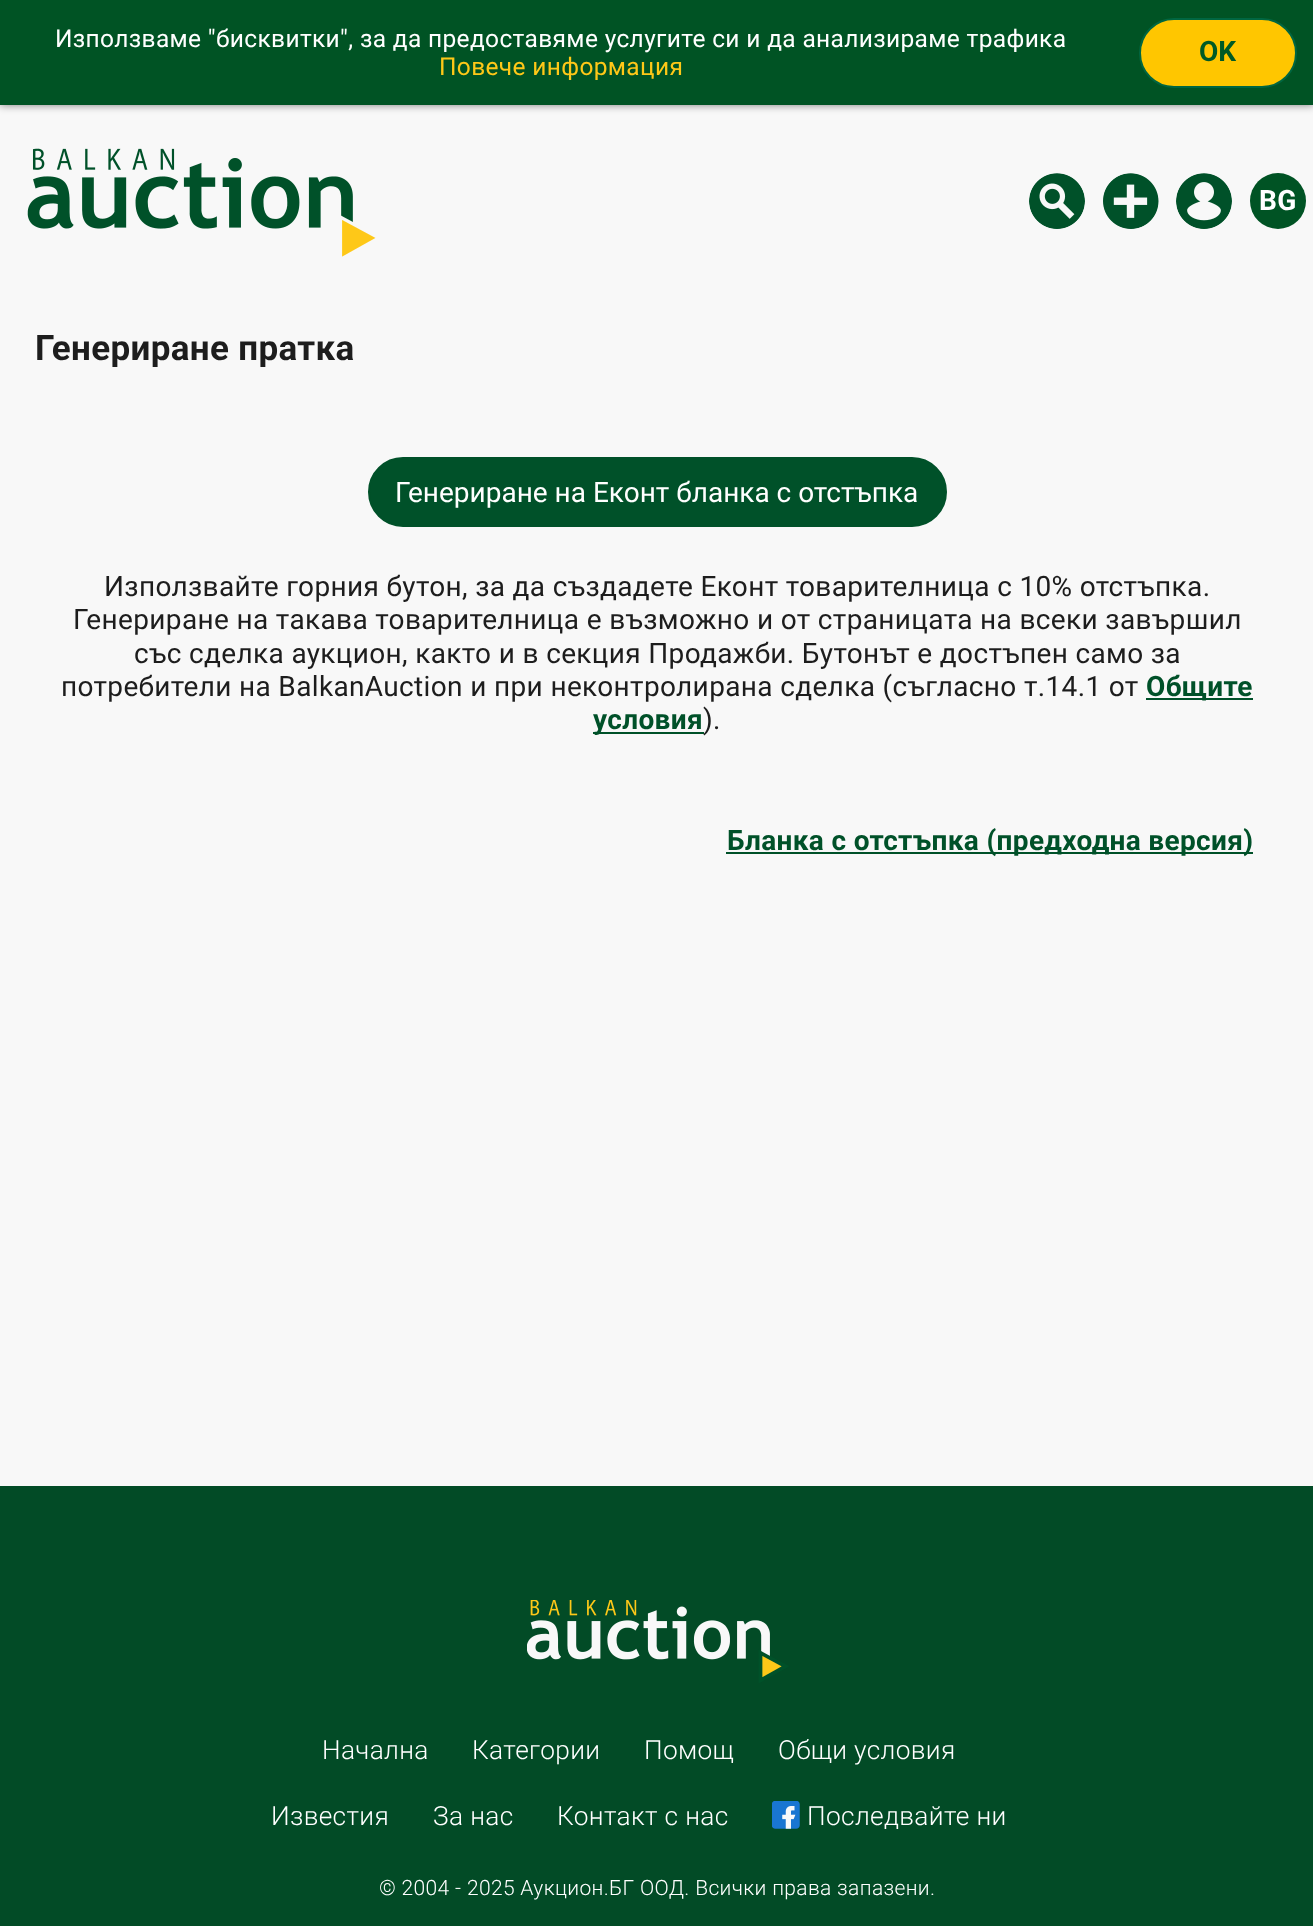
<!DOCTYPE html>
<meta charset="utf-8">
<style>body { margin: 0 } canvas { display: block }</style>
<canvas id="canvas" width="1313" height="1926"></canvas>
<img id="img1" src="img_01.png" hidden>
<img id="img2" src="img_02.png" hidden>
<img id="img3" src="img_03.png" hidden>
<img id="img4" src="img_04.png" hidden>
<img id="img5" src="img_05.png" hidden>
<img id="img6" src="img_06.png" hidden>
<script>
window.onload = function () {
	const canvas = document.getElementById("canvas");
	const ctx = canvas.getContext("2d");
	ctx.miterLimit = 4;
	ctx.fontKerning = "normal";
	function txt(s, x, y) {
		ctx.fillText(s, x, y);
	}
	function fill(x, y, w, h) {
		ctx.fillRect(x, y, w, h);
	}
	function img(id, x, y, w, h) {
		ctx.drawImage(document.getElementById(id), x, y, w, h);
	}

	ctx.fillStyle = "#F8F8F8";
	fill(0, 0, 1313, 1926);
	ctx.fillStyle = "rgba(0, 0, 0, 0.5)";
	ctx.filter = "blur(4.5px)";
	ctx.beginPath();
	ctx.rect(0, 0, 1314, 105);
	ctx.fill();
	ctx.filter = "none";
	ctx.fillStyle = "#005324";
	fill(0, 0, 1313, 105);
	ctx.fillStyle = "#FFC600";
	ctx.beginPath();
	ctx.roundRect(1140, 19, 156, 68, 34);
	ctx.fill();
	ctx.strokeStyle = "#006641";
	ctx.lineWidth = 2;
	ctx.stroke();
	img("img1", 27, 148, 349, 109);
	img("img2", 1029, 173, 56, 56);
	img("img3", 1103, 173, 56, 56);
	img("img4", 1176, 173, 56, 56);
	ctx.fillStyle = "#005324";
	ctx.beginPath();
	ctx.arc(1278, 201, 28, 0, Math.PI * 2);
	ctx.fill();
	ctx.fillStyle = "#005129";
	ctx.beginPath();
	ctx.roundRect(369, 458, 577, 68, 34);
	ctx.fill();
	ctx.strokeStyle = "#005129";
	ctx.stroke();
	fill(1146, 698, 107, 2);
	fill(593, 732, 111, 2);
	fill(726, 852, 527, 2);
	ctx.fillStyle = "#024B26";
	fill(0, 1486, 1313, 440);
	img("img5", 527, 1600, 262, 83);
	img("img6", 772, 1801, 28, 28);
	ctx.letterSpacing = "0.35px";
	ctx.font = "24.5px Roboto";
	ctx.fillStyle = "#FFFFFF";
	txt("Използваме \"бисквитки\", за да предоставяме услугите си и да анализираме трафика", 55, 47);
	ctx.fillStyle = "#FEC818";
	txt("Повече информация", 439, 75);
	ctx.letterSpacing = "0px";
	ctx.font = "bold 28px Roboto";
	ctx.fillStyle = "#005A25";
	txt("OK", 1199, 61);
	ctx.letterSpacing = "0.35px";
	ctx.fillStyle = "#FFFFFF";
	txt("BG", 1259, 210);
	ctx.font = "bold 35px Roboto";
	ctx.fillStyle = "#1D1D1D";
	txt("Генериране пратка", 35, 360);
	ctx.letterSpacing = "0px";
	ctx.font = "28px Roboto";
	ctx.fillStyle = "#FFFFFF";
	txt("Генериране на Еконт бланка с отстъпка", 395, 502);
	ctx.letterSpacing = "0.35px";
	ctx.fillStyle = "#1D1D1D";
	txt("Използвайте горния бутон, за да създадете Еконт товарителница с 10% отстъпка.", 104, 596);
	txt("Генериране на такава товарителница е възможно и от страницата на всеки завършил", 73, 629);
	txt("със сделка аукцион, както и в секция Продажби. Бутонът е достъпен само за", 134, 663);
	txt("потребители на BalkanAuction и при неконтролирана сделка (съгласно т.14.1 от", 61, 696);
	ctx.font = "bold 28px Roboto";
	ctx.fillStyle = "#005129";
	txt("Общите", 1146, 696);
	txt("условия", 593, 729);
	ctx.font = "28px Roboto";
	ctx.fillStyle = "#1D1D1D";
	txt(").", 703, 729);
	ctx.font = "bold 28px Roboto";
	ctx.fillStyle = "#005129";
	txt("Бланка с отстъпка (предходна версия)", 727, 850);
	ctx.font = "300 26.25px Roboto";
	ctx.fillStyle = "#FFFFFF";
	txt("Начална", 322, 1759);
	txt("Категории", 472, 1759);
	txt("Помощ", 644, 1759);
	txt("Общи условия", 778, 1759);
	txt("Известия", 271, 1825);
	txt("За нас", 433, 1825);
	txt("Контакт с нас", 557, 1825);
	txt("Последвайте ни", 807, 1825);
	ctx.font = "300 21px Roboto";
	txt("© 2004 - 2025 Аукцион.БГ ООД. Всички права запазени.", 379, 1895);
};
</script>
